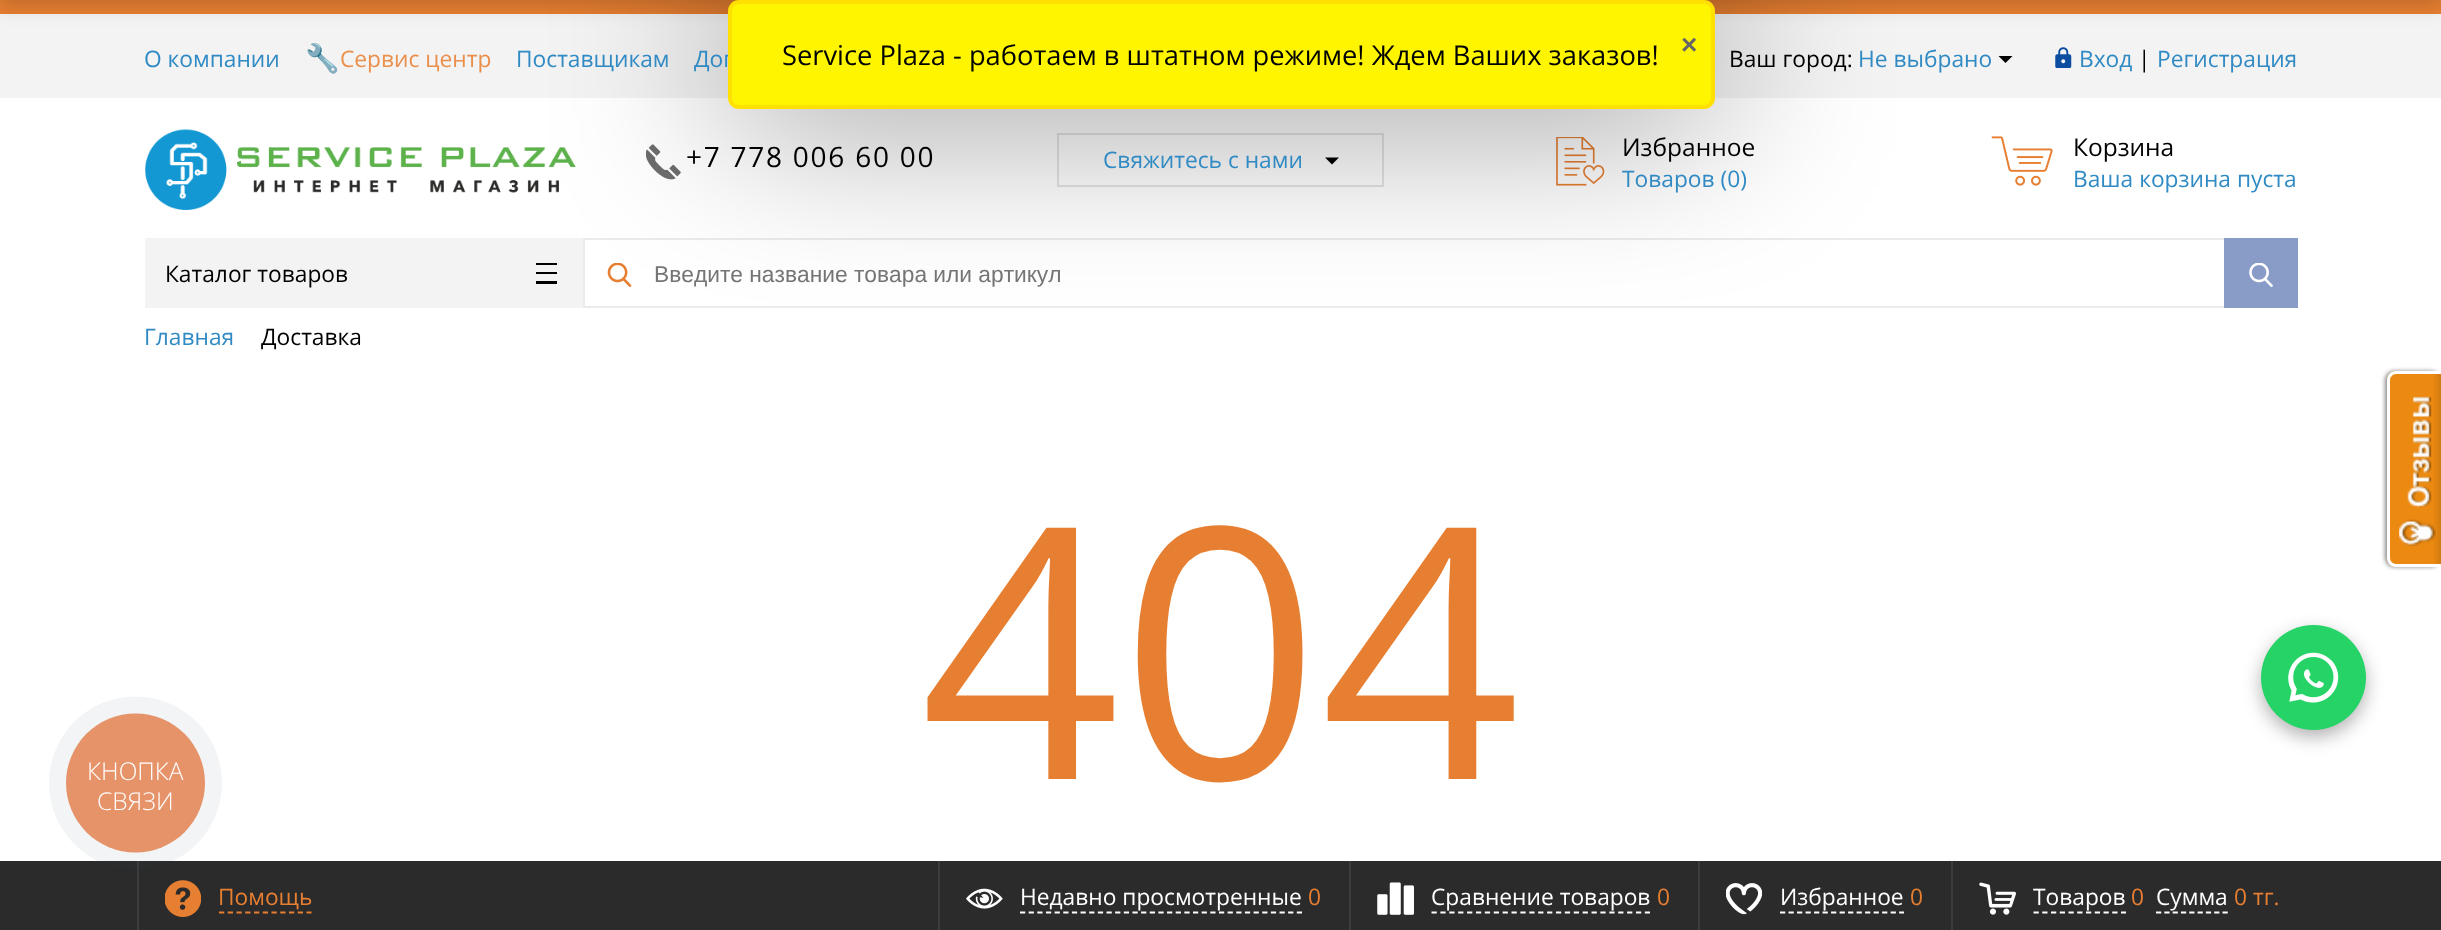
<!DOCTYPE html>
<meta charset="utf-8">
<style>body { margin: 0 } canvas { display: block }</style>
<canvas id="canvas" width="2441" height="930"></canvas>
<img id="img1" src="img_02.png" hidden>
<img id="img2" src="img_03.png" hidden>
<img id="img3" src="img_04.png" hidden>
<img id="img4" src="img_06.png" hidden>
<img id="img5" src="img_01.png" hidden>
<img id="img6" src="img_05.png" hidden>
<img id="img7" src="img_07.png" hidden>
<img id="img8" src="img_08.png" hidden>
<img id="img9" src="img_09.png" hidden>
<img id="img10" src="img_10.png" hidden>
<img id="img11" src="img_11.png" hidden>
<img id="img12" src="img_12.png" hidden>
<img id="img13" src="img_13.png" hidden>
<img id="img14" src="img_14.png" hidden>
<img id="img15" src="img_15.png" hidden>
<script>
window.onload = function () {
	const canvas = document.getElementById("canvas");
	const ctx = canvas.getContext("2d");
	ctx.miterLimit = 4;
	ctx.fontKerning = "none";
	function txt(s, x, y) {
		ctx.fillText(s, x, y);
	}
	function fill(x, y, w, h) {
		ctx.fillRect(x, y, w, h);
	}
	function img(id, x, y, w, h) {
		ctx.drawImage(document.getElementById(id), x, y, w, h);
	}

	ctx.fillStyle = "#FFFFFF";
	fill(0, 0, 2441, 930);
	ctx.fillStyle = "#F3F3F3";
	fill(0, 14, 2441, 84);
	ctx.fillStyle = "#E77F32";
	fill(0, 0, 2441, 14);
	img("img1", 145, 129, 431, 81);
	img("img2", 646, 144, 35, 36);
	ctx.strokeStyle = "#E5E5E5";
	ctx.lineWidth = 2;
	ctx.strokeRect(1058, 134, 325, 52);
	ctx.fillStyle = "#000000";
	ctx.beginPath();
	ctx.moveTo(1325, 157.5);
	ctx.lineTo(1332, 164.5);
	ctx.lineTo(1339, 157.5);
	ctx.closePath();
	ctx.fill("evenodd");
	img("img3", 1556, 137, 49, 49);
	ctx.fillStyle = "#F3F3F3";
	fill(145, 238, 438, 70);
	ctx.fillStyle = "#000000";
	fill(536, 263, 21, 2);
	fill(536, 272, 21, 2);
	fill(536, 281, 21, 3);
	ctx.fillStyle = "#EBEBEB";
	fill(583, 238, 1641, 2);
	fill(583, 306, 1641, 2);
	fill(583, 238, 2, 70);
	img("img4", 607, 263, 25, 24);
	ctx.fillStyle = "rgba(0, 0, 0, 0.5)";
	ctx.filter = "blur(87.5px)";
	ctx.beginPath();
	ctx.roundRect(728, 0, 987, 109, 11);
	ctx.fill();
	ctx.filter = "none";
	ctx.fillStyle = "rgba(0, 0, 0, 0.18)";
	ctx.filter = "blur(10.5px)";
	ctx.beginPath();
	ctx.rect(0, -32, 2441, 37);
	ctx.fill();
	ctx.filter = "none";
	ctx.fillStyle = "#000000";
	ctx.beginPath();
	ctx.moveTo(1998.5, 56);
	ctx.lineTo(2005.5, 63);
	ctx.lineTo(2012.5, 56);
	ctx.closePath();
	ctx.fill("evenodd");
	img("img5", 2055, 47, 17, 21);
	img("img6", 1991, 136, 62, 50);
	ctx.fillStyle = "#899CC7";
	fill(2224, 238, 74, 70);
	img("img7", 2249, 263, 24, 24);
	ctx.fillStyle = "#888888";
	ctx.filter = "blur(2px)";
	ctx.beginPath();
	ctx.roundRect(2385, 371, 55, 196, 9);
	ctx.fill();
	ctx.filter = "none";
	ctx.fillStyle = "#EB8911";
	ctx.beginPath();
	ctx.roundRect(2387, 371, 54, 196, [9, 0, 0, 9]);
	ctx.fill();
	img("img8", 2434, 374, 7, 190);
	ctx.fillStyle = "#FFFFFF";
	ctx.beginPath();
	ctx.moveTo(2396, 371);
	ctx.lineTo(2441, 371);
	ctx.lineTo(2441, 567);
	ctx.lineTo(2396, 567);
	ctx.bezierCurveTo(2391, 567, 2387, 563, 2387, 558);
	ctx.lineTo(2387, 380);
	ctx.bezierCurveTo(2387, 375, 2391, 371, 2396, 371);
	ctx.closePath();
	ctx.moveTo(2396, 374);
	ctx.lineTo(2441, 374);
	ctx.lineTo(2441, 564);
	ctx.lineTo(2396, 564);
	ctx.bezierCurveTo(2393, 564, 2390, 561, 2390, 558);
	ctx.lineTo(2390, 380);
	ctx.bezierCurveTo(2390, 377, 2393, 374, 2396, 374);
	ctx.closePath();
	ctx.fill("evenodd");
	img("img9", 2399, 396, 37, 150);
	ctx.fillStyle = "rgba(0, 0, 0, 0.3)";
	ctx.filter = "blur(9px)";
	ctx.beginPath();
	ctx.roundRect(2261, 632, 105, 105, 52.5);
	ctx.fill();
	ctx.filter = "none";
	ctx.fillStyle = "#25D366";
	ctx.beginPath();
	ctx.arc(2313.5, 677.5, 52.5, 0, Math.PI * 2);
	ctx.fill();
	img("img10", 2288, 652, 51, 51);
	ctx.fillStyle = "#2B2B2B";
	fill(0, 861, 2441, 69);
	ctx.fillStyle = "#3C3C3C";
	fill(137, 861, 2, 69);
	ctx.fillStyle = "rgba(42, 64, 93, 0.06)";
	ctx.beginPath();
	ctx.arc(135.5, 783, 86.5, 0, Math.PI * 2);
	ctx.fill();
	ctx.fillStyle = "#E6936A";
	ctx.beginPath();
	ctx.arc(135.5, 783, 69.5, 0, Math.PI * 2);
	ctx.fill();
	img("img11", 165, 880, 36, 37);
	ctx.beginPath();
	ctx.moveTo(219, 912.5);
	ctx.lineTo(311.5, 912.5);
	ctx.strokeStyle = "#E77F32";
	ctx.lineWidth = 1.8;
	ctx.setLineDash([5.25, 3.5]);
	ctx.stroke();
	ctx.fillStyle = "#3C3C3C";
	fill(938, 861, 2, 69);
	img("img12", 966, 888, 37, 21);
	ctx.beginPath();
	ctx.moveTo(1020, 912.5);
	ctx.lineTo(1302, 912.5);
	ctx.strokeStyle = "#FFFFFF";
	ctx.setLineDash([5.25, 3.4]);
	ctx.stroke();
	fill(1349, 861, 2, 69);
	img("img13", 1377, 882, 37, 33);
	ctx.beginPath();
	ctx.moveTo(1431.5, 912.5);
	ctx.lineTo(1650, 912.5);
	ctx.setLineDash([5.25, 3.64]);
	ctx.stroke();
	fill(1698, 861, 2, 69);
	img("img14", 1726, 883, 36, 32);
	ctx.beginPath();
	ctx.moveTo(1780, 912.5);
	ctx.lineTo(1904, 912.5);
	ctx.setLineDash([5.25, 3.26]);
	ctx.stroke();
	fill(1951, 861, 2, 69);
	img("img15", 1979, 882, 37, 33);
	ctx.beginPath();
	ctx.moveTo(2033.5, 912.5);
	ctx.lineTo(2126, 912.5);
	ctx.setLineDash([5.25, 3.5]);
	ctx.stroke();
	ctx.beginPath();
	ctx.moveTo(2156, 912.5);
	ctx.lineTo(2228, 912.5);
	ctx.setLineDash([5.25, 3.06]);
	ctx.stroke();
	ctx.font = "22.75px Open Sans";
	ctx.fillStyle = "#308AC4";
	txt("О компании", 144, 67);
	ctx.font = "28px Noto Color Emoji";
	ctx.fillStyle = "#EA8F4C";
	txt("🔧", 305, 68);
	ctx.font = "22.75px Open Sans";
	txt("Сервис центр", 340, 67);
	ctx.fillStyle = "#308AC4";
	txt("Поставщикам", 516, 67);
	txt("Дог", 694, 67);
	ctx.fillStyle = "#FFF500";
	ctx.beginPath();
	ctx.roundRect(730, 2, 983, 105, 9);
	ctx.fill();
	ctx.strokeStyle = "#FFE000";
	ctx.lineWidth = 4;
	ctx.setLineDash([]);
	ctx.stroke();
	ctx.font = "bold 28px Liberation Sans";
	ctx.fillStyle = "#666666";
	txt("×", 1681, 54);
	ctx.font = "27.3px Open Sans";
	ctx.fillStyle = "#000000";
	txt("Service Plaza - работаем в штатном режиме! Ждем Ваших заказов!", 782, 65);
	ctx.font = "22.75px Open Sans";
	txt("Ваш город:", 1729, 67);
	ctx.fillStyle = "#308AC4";
	txt("Не выбрано", 1858, 67);
	txt("Вход", 2079, 67);
	ctx.fillStyle = "#000000";
	txt("|", 2138, 67);
	ctx.fillStyle = "#308AC4";
	txt("Регистрация", 2157, 67);
	ctx.letterSpacing = "1.75px";
	ctx.font = "28px Open Sans";
	ctx.fillStyle = "#000000";
	txt("+7 778 006 60 00", 686, 167);
	ctx.letterSpacing = "0px";
	ctx.font = "22.75px Open Sans";
	ctx.fillStyle = "#308AC4";
	txt("Свяжитесь с нами", 1103, 168);
	ctx.font = "24.5px Open Sans";
	ctx.fillStyle = "#000000";
	txt("Избранное", 1622, 156);
	ctx.font = "22.75px Open Sans";
	ctx.fillStyle = "#308AC4";
	txt("Товаров (0)", 1622, 187);
	ctx.font = "24.5px Open Sans";
	ctx.fillStyle = "#000000";
	txt("Корзина", 2073, 156);
	ctx.font = "22.75px Open Sans";
	ctx.fillStyle = "#308AC4";
	txt("Ваша корзина пуста", 2073, 187);
	ctx.fillStyle = "#000000";
	txt("Каталог товаров", 165, 282);
	ctx.font = "22.75px Liberation Sans";
	ctx.fillStyle = "#757575";
	txt("Введите название товара или артикул", 654, 282);
	ctx.font = "22.75px Open Sans";
	ctx.fillStyle = "#308AC4";
	txt("Главная", 144, 345);
	ctx.fillStyle = "#000000";
	txt("Доставка", 261, 345);
	ctx.font = "350px Open Sans";
	ctx.fillStyle = "#E77F32";
	txt("404", 920, 779);
	ctx.font = "300 24.5px Open Sans";
	ctx.fillStyle = "#FFFFFF";
	txt("КНОПКА", 87, 780);
	txt("СВЯЗИ", 97, 810);
	ctx.font = "22.75px Open Sans";
	ctx.fillStyle = "#E77F32";
	txt("Помощь", 218, 905);
	ctx.fillStyle = "#FFFFFF";
	txt("Недавно просмотренные", 1020, 905);
	ctx.fillStyle = "#E77F32";
	txt("0", 1308, 905);
	ctx.fillStyle = "#FFFFFF";
	txt("Сравнение товаров", 1431, 905);
	ctx.fillStyle = "#E77F32";
	txt("0", 1657, 905);
	ctx.fillStyle = "#FFFFFF";
	txt("Избранное", 1780, 905);
	ctx.fillStyle = "#E77F32";
	txt("0", 1910, 905);
	ctx.fillStyle = "#FFFFFF";
	txt("Товаров", 2033, 905);
	ctx.fillStyle = "#E77F32";
	txt("0", 2131, 905);
	ctx.fillStyle = "#FFFFFF";
	txt("Сумма", 2156, 905);
	ctx.fillStyle = "#E77F32";
	txt("0 тг.", 2234, 905);
};
</script>
